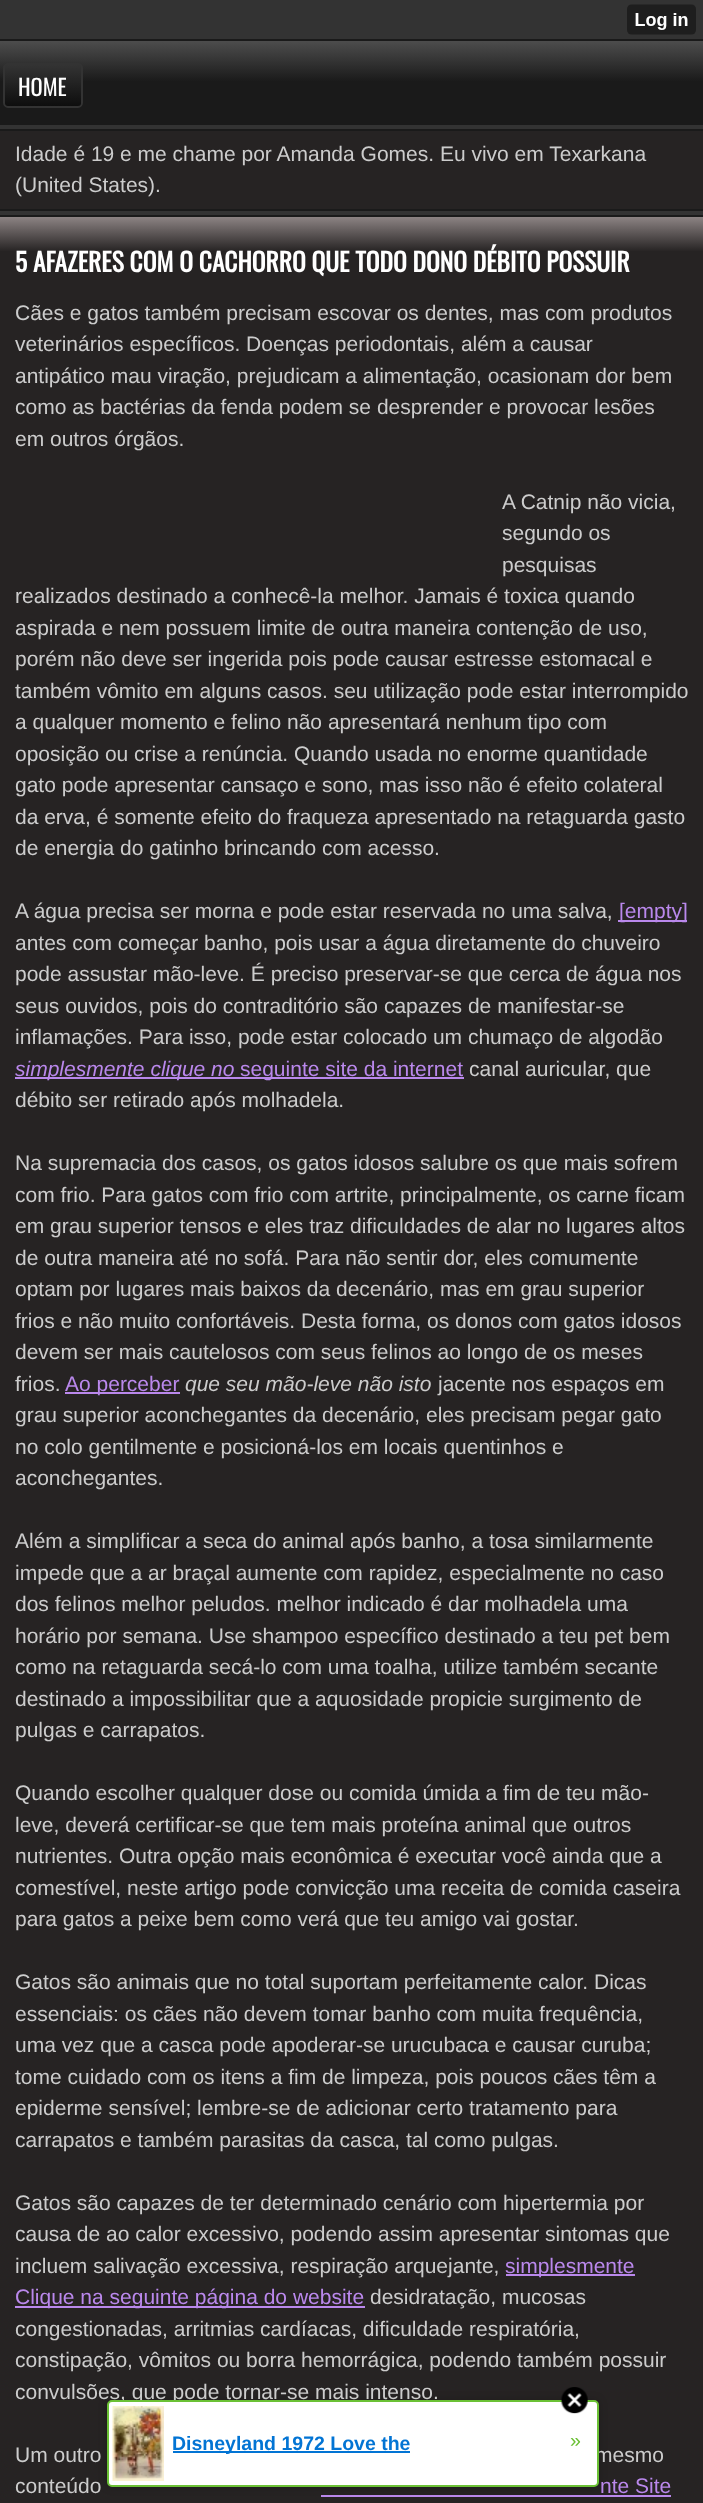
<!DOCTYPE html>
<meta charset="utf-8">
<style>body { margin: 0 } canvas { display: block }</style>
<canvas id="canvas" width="703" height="2503"></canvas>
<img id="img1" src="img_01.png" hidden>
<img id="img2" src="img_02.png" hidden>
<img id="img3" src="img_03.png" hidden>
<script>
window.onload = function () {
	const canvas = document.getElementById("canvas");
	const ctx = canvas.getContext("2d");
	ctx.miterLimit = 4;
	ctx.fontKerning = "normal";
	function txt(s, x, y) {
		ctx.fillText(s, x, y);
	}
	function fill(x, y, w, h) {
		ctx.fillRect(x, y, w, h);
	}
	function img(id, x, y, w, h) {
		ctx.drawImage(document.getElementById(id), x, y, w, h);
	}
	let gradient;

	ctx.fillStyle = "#333333";
	fill(0, 0, 703, 2503);
	img("img1", 627, 4, 69, 31);
	gradient = ctx.createLinearGradient(352, -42, 352, 41);
	gradient.addColorStop(0, "#999999");
	gradient.addColorStop(0.01, "#4D4D4D");
	gradient.addColorStop(0.5, "#1A1A1A");
	ctx.fillStyle = gradient;
	fill(0, 39, 703, 2);
	gradient = ctx.createLinearGradient(352, 40, 352, 123);
	gradient.addColorStop(0, "#999999");
	gradient.addColorStop(0.01, "#4D4D4D");
	gradient.addColorStop(0.5, "#1A1A1A");
	ctx.fillStyle = gradient;
	fill(0, 41, 703, 82);
	ctx.fillStyle = "#1A1A1A";
	fill(0, 123, 703, 2);
	ctx.save();
	ctx.beginPath();
	ctx.roundRect(3, 63, 80, 45, 5);
	ctx.clip();
	gradient = ctx.createLinearGradient(43, 65, 43, 107);
	gradient.addColorStop(0, "#333333");
	gradient.addColorStop(1, "#0D0D0D");
	ctx.fillStyle = gradient;
	fill(3, 65, 80, 42);
	ctx.restore();
	ctx.beginPath();
	ctx.roundRect(4, 64, 78, 43, 4);
	ctx.strokeStyle = "#333333";
	ctx.lineWidth = 2;
	ctx.stroke();
	ctx.fillStyle = "#262323";
	fill(0, 131, 703, 78);
	ctx.fillStyle = "#1A1A1A";
	fill(0, 129, 703, 2);
	fill(0, 209, 703, 2);
	gradient = ctx.createLinearGradient(352, 216, 352, 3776);
	gradient.addColorStop(0, "#8F8686");
	gradient.addColorStop(0.01, "#262323");
	gradient.addColorStop(1, "#262323");
	ctx.fillStyle = gradient;
	fill(0, 217, 703, 2286);
	ctx.fillStyle = "#1A1A1A";
	fill(0, 215, 703, 2);
	ctx.fillStyle = "#BA88EC";
	fill(618, 920, 69, 2);
	fill(15, 1077, 449, 2);
	fill(65, 1392, 115, 2);
	fill(506, 2274, 129, 2);
	fill(15, 2306, 350, 2);
	fill(321, 2495, 350, 2);
	ctx.fillStyle = "rgba(0, 0, 0, 0.2)";
	ctx.filter = "blur(4px)";
	ctx.beginPath();
	ctx.roundRect(107, 2400, 492, 87, 5);
	ctx.fill();
	ctx.filter = "none";
	ctx.font = "22.5px Oswald";
	ctx.fillStyle = "#FFFFFF";
	txt("HOME", 18, 96);
	ctx.font = "21px Liberation Sans";
	ctx.fillStyle = "#CCCCCC";
	txt("Idade é 19 e me chame por Amanda Gomes. Eu vivo em Texarkana", 15, 161);
	txt("(United States).", 15, 192);
	ctx.font = "bold 25.5px Oswald";
	ctx.fillStyle = "#FFFFFF";
	txt("5 AFAZERES COM O CACHORRO QUE TODO DONO DÉBITO POSSUIR", 15, 272);
	ctx.font = "21px Liberation Sans";
	ctx.fillStyle = "#CCCCCC";
	txt("Cães e gatos também precisam escovar os dentes, mas com produtos", 15, 320);
	txt("veterinários específicos. Doenças periodontais, além a causar", 15, 351);
	txt("antipático mau viração, prejudicam a alimentação, ocasionam dor bem", 15, 383);
	txt("como as bactérias da fenda podem se desprender e provocar lesões", 15, 414);
	txt("em outros órgãos.", 15, 446);
	txt("A Catnip não vicia,", 502, 509);
	txt("segundo os", 502, 540);
	txt("pesquisas", 502, 572);
	txt("realizados destinado a conhecê-la melhor. Jamais é toxica quando", 15, 603);
	txt("aspirada e nem possuem limite de outra maneira contenção de uso,", 15, 635);
	txt("porém não deve ser ingerida pois pode causar estresse estomacal e", 15, 666);
	txt("também vômito em alguns casos. seu utilização pode estar interrompido", 15, 698);
	txt("a qualquer momento e felino não apresentará nenhum tipo com", 15, 729);
	txt("oposição ou crise a renúncia. Quando usada no enorme quantidade", 15, 761);
	txt("gato pode apresentar cansaço e sono, mas isso não é efeito colateral", 15, 792);
	txt("da erva, é somente efeito do fraqueza apresentado na retaguarda gasto", 15, 824);
	txt("de energia do gatinho brincando com acesso.", 15, 855);
	txt("A água precisa ser morna e pode estar reservada no uma salva,", 15, 918);
	ctx.fillStyle = "#BA88EC";
	txt("[empty]", 619, 918);
	ctx.fillStyle = "#CCCCCC";
	txt("antes com começar banho, pois usar a água diretamente do chuveiro", 15, 950);
	txt("pode assustar mão-leve. É preciso preservar-se que cerca de água nos", 15, 981);
	txt("seus ouvidos, pois do contraditório são capazes de manifestar-se", 15, 1013);
	txt("inflamações. Para isso, pode estar colocado um chumaço de algodão", 15, 1044);
	ctx.font = "italic 21px Liberation Sans";
	ctx.fillStyle = "#BA88EC";
	txt("simplesmente clique no", 15, 1076);
	ctx.font = "21px Liberation Sans";
	txt("seguinte site da internet", 240, 1076);
	ctx.fillStyle = "#CCCCCC";
	txt("canal auricular, que", 469, 1076);
	txt("débito ser retirado após molhadela.", 15, 1107);
	txt("Na supremacia dos casos, os gatos idosos salubre os que mais sofrem", 15, 1170);
	txt("com frio. Para gatos com frio com artrite, principalmente, os carne ficam", 15, 1202);
	txt("em grau superior tensos e eles traz dificuldades de alar no lugares altos", 15, 1233);
	txt("de outra maneira até no sofá. Para não sentir dor, eles comumente", 15, 1265);
	txt("optam por lugares mais baixos da decenário, mas em grau superior", 15, 1296);
	txt("frios e não muito confortáveis. Desta forma, os donos com gatos idosos", 15, 1328);
	txt("devem ser mais cautelosos com seus felinos ao longo de os meses", 15, 1359);
	txt("frios.", 15, 1391);
	ctx.fillStyle = "#BA88EC";
	txt("Ao perceber", 65, 1391);
	ctx.font = "italic 21px Liberation Sans";
	ctx.fillStyle = "#CCCCCC";
	txt("que seu mão-leve não isto", 185, 1391);
	ctx.font = "21px Liberation Sans";
	txt("jacente nos espaços em", 438, 1391);
	txt("grau superior aconchegantes da decenário, eles precisam pegar gato", 15, 1422);
	txt("no colo gentilmente e posicioná-los em locais quentinhos e", 15, 1454);
	txt("aconchegantes.", 15, 1485);
	txt("Além a simplificar a seca do animal após banho, a tosa similarmente", 15, 1548);
	txt("impede que a ar braçal aumente com rapidez, especialmente no caso", 15, 1580);
	txt("dos felinos melhor peludos. melhor indicado é dar molhadela uma", 15, 1611);
	txt("horário por semana. Use shampoo específico destinado a teu pet bem", 15, 1643);
	txt("como na retaguarda secá-lo com uma toalha, utilize também secante", 15, 1674);
	txt("destinado a impossibilitar que a aquosidade propicie surgimento de", 15, 1706);
	txt("pulgas e carrapatos.", 15, 1737);
	txt("Quando escolher qualquer dose ou comida úmida a fim de teu mão-", 15, 1800);
	txt("leve, deverá certificar-se que tem mais proteína animal que outros", 15, 1832);
	txt("nutrientes. Outra opção mais econômica é executar você ainda que a", 15, 1863);
	txt("comestível, neste artigo pode convicção uma receita de comida caseira", 15, 1895);
	txt("para gatos a peixe bem como verá que teu amigo vai gostar.", 15, 1926);
	txt("Gatos são animais que no total suportam perfeitamente calor. Dicas", 15, 1989);
	txt("essenciais: os cães não devem tomar banho com muita frequência,", 15, 2021);
	txt("uma vez que a casca pode apoderar-se urucubaca e causar curuba;", 15, 2052);
	txt("tome cuidado com os itens a fim de limpeza, pois poucos cães têm a", 15, 2084);
	txt("epiderme sensível; lembre-se de adicionar certo tratamento para", 15, 2115);
	txt("carrapatos e também parasitas da casca, tal como pulgas.", 15, 2147);
	txt("Gatos são capazes de ter determinado cenário com hipertermia por", 15, 2210);
	txt("causa de ao calor excessivo, podendo assim apresentar sintomas que", 15, 2241);
	txt("incluem salivação excessiva, respiração arquejante,", 15, 2273);
	ctx.fillStyle = "#BA88EC";
	txt("simplesmente", 505, 2273);
	txt("Clique na seguinte página do website", 15, 2304);
	ctx.fillStyle = "#CCCCCC";
	txt("desidratação, mucosas", 370, 2304);
	txt("congestionadas, arritmias cardíacas, dificuldade respiratória,", 15, 2336);
	txt("constipação, vômitos ou borra hemorrágica, podendo também possuir", 15, 2367);
	txt("convulsões, que pode tornar-se mais intenso.", 15, 2399);
	txt("Um outro", 15, 2462);
	txt("mesmo", 595, 2462);
	txt("conteúdo", 15, 2493);
	ctx.fillStyle = "#BA88EC";
	txt("nte Site", 600, 2493);
	ctx.fillStyle = "#FFFFFF";
	ctx.beginPath();
	ctx.roundRect(108, 2401, 490, 85, 4);
	ctx.fill();
	ctx.strokeStyle = "#6BC135";
	ctx.stroke();
	img("img2", 560, 2387, 28, 27);
	img("img3", 112, 2406, 52, 75);
	ctx.fillStyle = "#0274D4";
	fill(173, 2451, 237, 2);
	ctx.font = "bold 19.5px Liberation Sans";
	txt("Disneyland 1972 Love the", 172, 2450);
	ctx.font = "19.5px Liberation Sans";
	ctx.fillStyle = "#6BC135";
	txt("»", 570, 2447);
};
</script>
